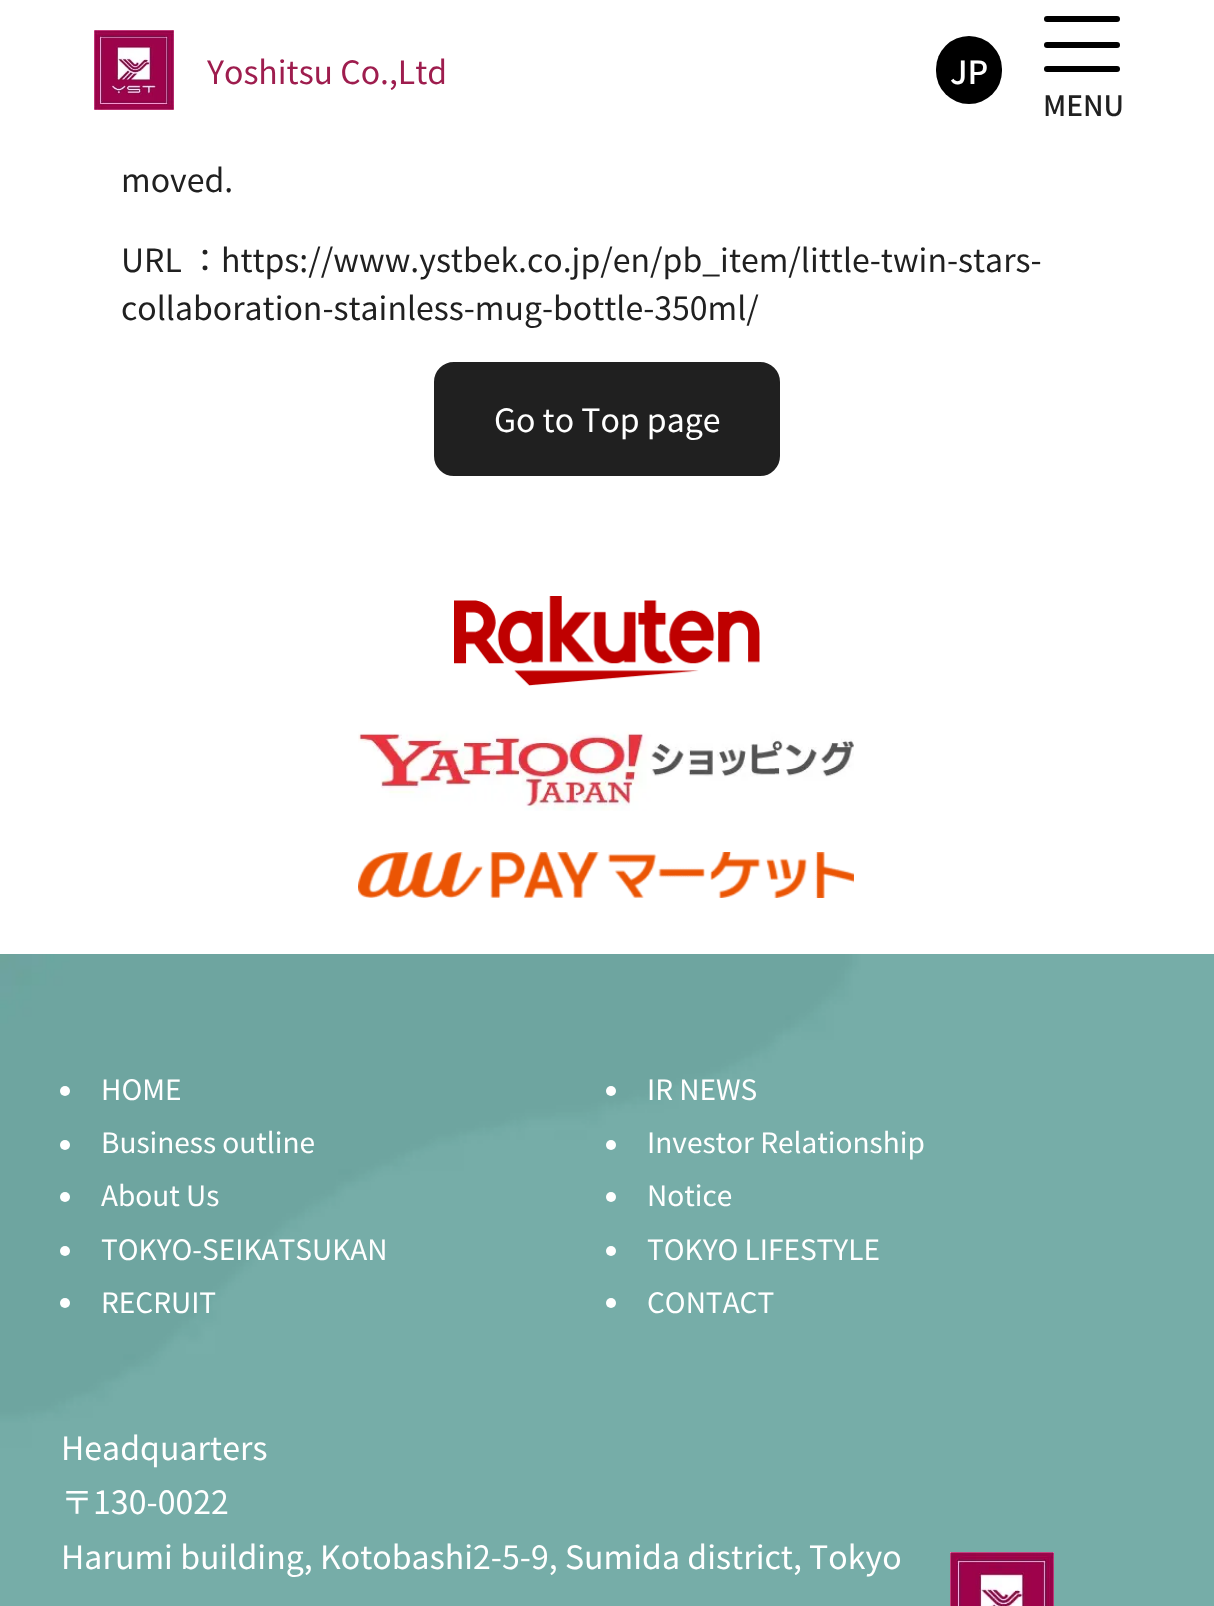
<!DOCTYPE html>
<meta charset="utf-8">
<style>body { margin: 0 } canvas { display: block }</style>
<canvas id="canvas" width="1214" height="1606"></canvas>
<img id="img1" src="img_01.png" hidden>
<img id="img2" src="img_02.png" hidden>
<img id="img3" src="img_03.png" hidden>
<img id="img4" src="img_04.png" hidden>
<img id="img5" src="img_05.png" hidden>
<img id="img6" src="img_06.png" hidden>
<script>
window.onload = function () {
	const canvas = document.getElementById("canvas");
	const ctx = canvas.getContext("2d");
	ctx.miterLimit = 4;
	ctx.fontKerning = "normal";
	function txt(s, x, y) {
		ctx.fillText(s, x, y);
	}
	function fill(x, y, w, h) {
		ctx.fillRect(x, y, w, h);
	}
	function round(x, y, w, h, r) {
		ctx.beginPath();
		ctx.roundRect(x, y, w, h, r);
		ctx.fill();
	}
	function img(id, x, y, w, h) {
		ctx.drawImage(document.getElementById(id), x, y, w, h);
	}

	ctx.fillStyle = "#FFFFFF";
	fill(0, 0, 1214, 1606);
	img("img1", 94, 30, 80, 80);
	ctx.fillStyle = "#000000";
	round(936, 36, 66, 68, 33);
	round(1044, 16, 76, 6, 3);
	round(1044, 42, 76, 6, 3);
	round(1044, 66, 76, 6, 3);
	ctx.fillStyle = "#202020";
	ctx.beginPath();
	ctx.roundRect(435, 363, 344, 112, 19);
	ctx.fill();
	ctx.strokeStyle = "#202020";
	ctx.lineWidth = 2;
	ctx.stroke();
	img("img2", 454, 596, 306, 90);
	img("img3", 358, 731, 496, 80);
	img("img4", 358, 852, 496, 46);
	img("img5", 0, 954, 1214, 652);
	ctx.fillStyle = "#FFFFFF";
	ctx.beginPath();
	ctx.arc(65, 1091, 5, 0, Math.PI * 2);
	ctx.fill();
	ctx.beginPath();
	ctx.arc(611, 1091, 5, 0, Math.PI * 2);
	ctx.fill();
	ctx.beginPath();
	ctx.arc(65, 1145, 5, 0, Math.PI * 2);
	ctx.fill();
	ctx.beginPath();
	ctx.arc(611, 1145, 5, 0, Math.PI * 2);
	ctx.fill();
	ctx.beginPath();
	ctx.arc(65, 1197, 5, 0, Math.PI * 2);
	ctx.fill();
	ctx.beginPath();
	ctx.arc(611, 1197, 5, 0, Math.PI * 2);
	ctx.fill();
	ctx.beginPath();
	ctx.arc(65, 1251, 5, 0, Math.PI * 2);
	ctx.fill();
	ctx.beginPath();
	ctx.arc(611, 1251, 5, 0, Math.PI * 2);
	ctx.fill();
	ctx.beginPath();
	ctx.arc(65, 1303, 5, 0, Math.PI * 2);
	ctx.fill();
	ctx.beginPath();
	ctx.arc(611, 1303, 5, 0, Math.PI * 2);
	ctx.fill();
	img("img6", 950, 1552, 104, 54);
	ctx.font = "32px Noto Sans JP";
	ctx.fillStyle = "#9E1D4E";
	txt("Yoshitsu Co.,Ltd", 207, 84);
	ctx.font = "500 32px Noto Sans JP";
	ctx.fillStyle = "#FFFFFF";
	txt("JP", 950, 84);
	ctx.font = "500 28px Noto Sans JP";
	ctx.fillStyle = "#202020";
	txt("MENU", 1043, 116);
	ctx.font = "32px Noto Sans JP";
	txt("moved.", 121, 192);
	txt("URL ：https://www.ystbek.co.jp/en/pb_item/little-twin-stars-", 121, 272);
	txt("collaboration-stainless-mug-bottle-350ml/", 121, 320);
	ctx.fillStyle = "#FFFFFF";
	txt("Go to Top page", 494, 432);
	ctx.font = "28px Noto Sans JP";
	txt("HOME", 101, 1100);
	txt("IR NEWS", 647, 1100);
	txt("Business outline", 101, 1153);
	txt("Investor Relationship", 647, 1153);
	txt("About Us", 101, 1206);
	txt("Notice", 647, 1206);
	txt("TOKYO-SEIKATSUKAN", 101, 1260);
	txt("TOKYO LIFESTYLE", 647, 1260);
	txt("RECRUIT", 101, 1313);
	txt("CONTACT", 647, 1313);
	ctx.letterSpacing = "0.05px";
	ctx.font = "32px Noto Sans JP";
	txt("Headquarters", 61, 1460);
	txt("〒130-0022", 61, 1514);
	txt("Harumi building, Kotobashi2-5-9, Sumida district, Tokyo", 61, 1569);
};
</script>
